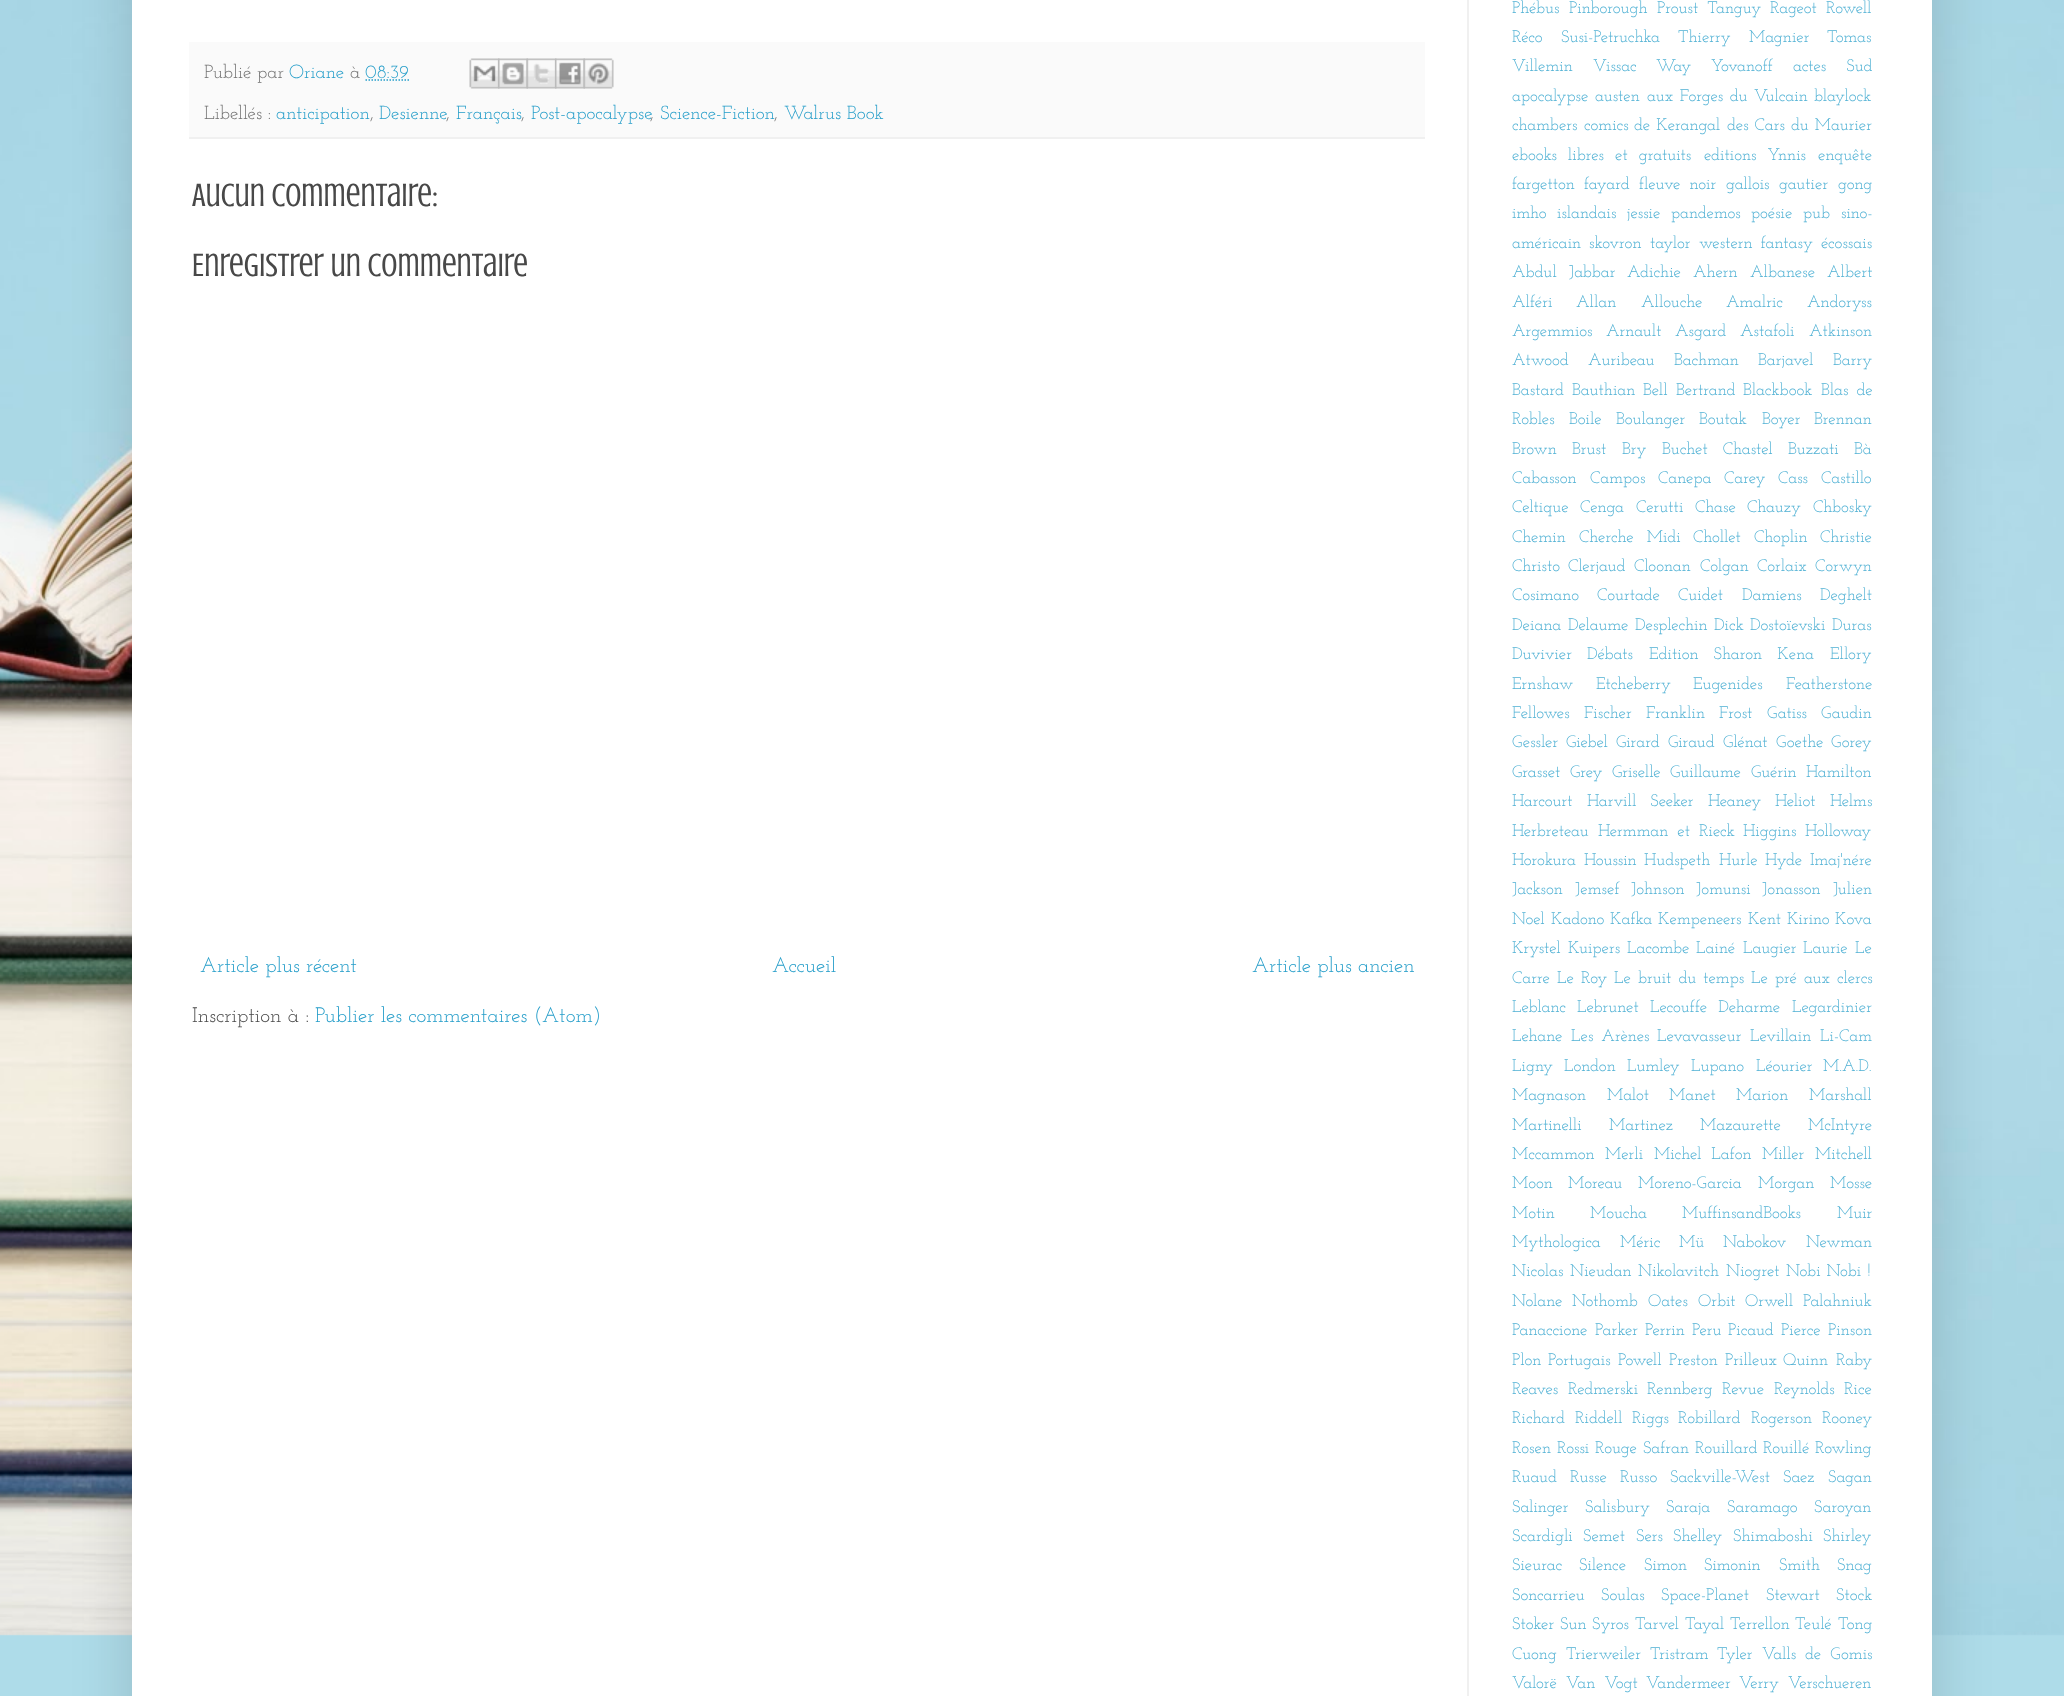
<!DOCTYPE html>
<meta charset="utf-8">
<style>body { margin: 0 } canvas { display: block }</style>
<canvas id="canvas" width="2064" height="1696"></canvas>
<img id="img1" src="img_01.png" hidden>
<img id="img2" src="img_02.png" hidden>
<img id="img3" src="img_03.png" hidden>
<img id="img4" src="img_04.png" hidden>
<img id="img5" src="img_05.png" hidden>
<img id="img6" src="img_06.png" hidden>
<script>
window.onload = function () {
	const canvas = document.getElementById("canvas");
	const ctx = canvas.getContext("2d");
	ctx.miterLimit = 4;
	ctx.fontKerning = "normal";
	function txt(s, x, y) {
		ctx.fillText(s, x, y);
	}
	function fill(x, y, w, h) {
		ctx.fillRect(x, y, w, h);
	}
	function img(id, x, y, w, h) {
		ctx.drawImage(document.getElementById(id), x, y, w, h);
	}

	ctx.fillStyle = "#AEDCE9";
	fill(0, 0, 2064, 1696);
	img("img1", 0, 0, 2064, 1636);
	ctx.fillStyle = "rgba(0, 0, 0, 0.15)";
	ctx.filter = "blur(30px)";
	ctx.beginPath();
	ctx.rect(132, -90, 1800, 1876);
	ctx.fill();
	ctx.filter = "none";
	ctx.fillStyle = "#FFFFFF";
	fill(132, 0, 1800, 1696);
	ctx.fillStyle = "#FAFAFA";
	fill(189, 42, 1236, 95);
	ctx.fillStyle = "#F0F0F0";
	fill(189, 137, 1236, 2);
	ctx.beginPath();
	ctx.moveTo(365.5, 80);
	ctx.lineTo(409, 80);
	ctx.strokeStyle = "#249DC9";
	ctx.lineWidth = 1.5;
	ctx.setLineDash([1.5, 1.5]);
	ctx.stroke();
	img("img2", 469, 58, 31, 31);
	img("img3", 498, 58, 30, 31);
	img("img4", 526, 58, 31, 31);
	img("img5", 555, 58, 30, 31);
	img("img6", 583, 58, 31, 31);
	fill(1467, 0, 2, 1696);
	ctx.font = "100 19px Josefin Slab";
	ctx.fillStyle = "#707070";
	txt("Publié par", 204, 78);
	ctx.fillStyle = "#249DC9";
	txt("Oriane", 289, 78);
	ctx.fillStyle = "#707070";
	txt("à", 350, 78);
	ctx.fillStyle = "#249DC9";
	txt("08:39", 365, 78);
	ctx.fillStyle = "#707070";
	txt("Libellés :", 204, 119);
	ctx.fillStyle = "#249DC9";
	txt("anticipation", 276, 119);
	ctx.fillStyle = "#707070";
	txt(",", 370, 119);
	ctx.fillStyle = "#249DC9";
	txt("Desienne", 379, 119);
	ctx.fillStyle = "#707070";
	txt(",", 446, 119);
	ctx.fillStyle = "#249DC9";
	txt("Français", 456, 119);
	ctx.fillStyle = "#707070";
	txt(",", 521, 119);
	ctx.fillStyle = "#249DC9";
	txt("Post-apocalypse", 531, 119);
	ctx.fillStyle = "#707070";
	txt(",", 650, 119);
	ctx.fillStyle = "#249DC9";
	txt("Science-Fiction", 660, 119);
	ctx.fillStyle = "#707070";
	txt(",", 774, 119);
	ctx.fillStyle = "#249DC9";
	txt("Walrus Book", 784, 119);
	ctx.font = "33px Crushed";
	ctx.fillStyle = "#484848";
	txt("Aucun commentaire:", 192, 206);
	txt("Enregistrer un commentaire", 192, 276);
	ctx.font = "100 21px Josefin Slab";
	ctx.fillStyle = "#249DC9";
	txt("Article plus récent", 200, 972);
	txt("Accueil", 772, 972);
	txt("Article plus ancien", 1252, 972);
	ctx.fillStyle = "#484848";
	txt("Inscription à :", 192, 1022);
	ctx.fillStyle = "#249DC9";
	txt("Publier les commentaires (Atom)", 315, 1022);
	ctx.font = "100 16.75px Josefin Slab";
	ctx.fillStyle = "#50B1D4";
	txt("Phébus", 1512, 13);
	txt("Pinborough", 1569, 13);
	ctx.wordSpacing = "4px";
	txt("Proust Tanguy", 1657, 13);
	ctx.wordSpacing = "0px";
	txt("Rageot", 1770, 13);
	txt("Rowell", 1826, 13);
	txt("Réco", 1512, 42);
	txt("Susi-Petruchka", 1561, 42);
	ctx.wordSpacing = "13px";
	txt("Thierry Magnier", 1678, 42);
	ctx.wordSpacing = "0px";
	txt("Tomas", 1827, 42);
	txt("Villemin", 1512, 71);
	txt("Vissac", 1593, 71);
	txt("Way", 1656, 71);
	txt("Yovanoff", 1711, 71);
	ctx.wordSpacing = "15px";
	txt("actes Sud", 1793, 71);
	ctx.wordSpacing = "0px";
	txt("apocalypse", 1512, 101);
	txt("austen", 1595, 101);
	ctx.wordSpacing = "1.5px";
	txt("aux Forges du Vulcain", 1647, 101);
	ctx.wordSpacing = "0px";
	txt("blaylock", 1814, 101);
	txt("chambers", 1512, 130);
	txt("comics", 1584, 130);
	ctx.wordSpacing = "1px";
	txt("de Kerangal", 1634, 130);
	txt("des Cars", 1727, 130);
	txt("du Maurier", 1791, 130);
	ctx.wordSpacing = "6px";
	txt("ebooks libres et gratuits", 1512, 160);
	txt("editions Ynnis", 1704, 160);
	ctx.wordSpacing = "0px";
	txt("enquête", 1818, 160);
	txt("fargetton", 1512, 189);
	txt("fayard", 1584, 189);
	ctx.wordSpacing = "4px";
	txt("fleuve noir", 1639, 189);
	ctx.wordSpacing = "0px";
	txt("gallois", 1726, 189);
	txt("gautier", 1779, 189);
	txt("gong", 1838, 189);
	txt("imho", 1512, 218);
	txt("islandais", 1557, 218);
	txt("jessie", 1627, 218);
	txt("pandemos", 1671, 218);
	txt("poésie", 1751, 218);
	txt("pub", 1803, 218);
	txt("sino-", 1841, 218);
	txt("américain", 1512, 248);
	txt("skovron", 1589, 248);
	txt("taylor", 1650, 248);
	ctx.wordSpacing = "3px";
	txt("western fantasy", 1699, 248);
	ctx.wordSpacing = "0px";
	txt("écossais", 1821, 248);
	ctx.wordSpacing = "7px";
	txt("Abdul Jabbar", 1512, 277);
	ctx.wordSpacing = "0px";
	txt("Adichie", 1627, 277);
	txt("Ahern", 1693, 277);
	txt("Albanese", 1750, 277);
	txt("Albert", 1827, 277);
	txt("Alféri", 1512, 307);
	txt("Allan", 1576, 307);
	txt("Allouche", 1641, 307);
	txt("Amalric", 1726, 307);
	txt("Andoryss", 1807, 307);
	txt("Argemmios", 1512, 336);
	txt("Arnault", 1606, 336);
	txt("Asgard", 1675, 336);
	txt("Astafoli", 1740, 336);
	txt("Atkinson", 1809, 336);
	txt("Atwood", 1512, 365);
	txt("Auribeau", 1588, 365);
	txt("Bachman", 1674, 365);
	txt("Barjavel", 1758, 365);
	txt("Barry", 1833, 365);
	txt("Bastard", 1512, 395);
	txt("Bauthian", 1572, 395);
	txt("Bell", 1643, 395);
	txt("Bertrand", 1676, 395);
	txt("Blackbook", 1743, 395);
	ctx.wordSpacing = "3px";
	txt("Blas de", 1821, 395);
	ctx.wordSpacing = "0px";
	txt("Robles", 1512, 424);
	txt("Boile", 1569, 424);
	txt("Boulanger", 1616, 424);
	txt("Boutak", 1699, 424);
	txt("Boyer", 1762, 424);
	txt("Brennan", 1814, 424);
	txt("Brown", 1512, 454);
	txt("Brust", 1572, 454);
	txt("Bry", 1622, 454);
	ctx.wordSpacing = "10px";
	txt("Buchet Chastel", 1662, 454);
	ctx.wordSpacing = "0px";
	txt("Buzzati", 1788, 454);
	txt("Bà", 1854, 454);
	txt("Cabasson", 1512, 483);
	txt("Campos", 1590, 483);
	txt("Canepa", 1658, 483);
	txt("Carey", 1724, 483);
	txt("Cass", 1778, 483);
	txt("Castillo", 1821, 483);
	txt("Celtique", 1512, 512);
	txt("Cenga", 1580, 512);
	txt("Cerutti", 1636, 512);
	txt("Chase", 1695, 512);
	txt("Chauzy", 1747, 512);
	txt("Chbosky", 1813, 512);
	txt("Chemin", 1512, 542);
	ctx.wordSpacing = "8px";
	txt("Cherche Midi", 1579, 542);
	ctx.wordSpacing = "0px";
	txt("Chollet", 1693, 542);
	txt("Choplin", 1754, 542);
	txt("Christie", 1820, 542);
	txt("Christo", 1512, 571);
	txt("Clerjaud", 1568, 571);
	txt("Cloonan", 1634, 571);
	txt("Colgan", 1700, 571);
	txt("Corlaix", 1757, 571);
	txt("Corwyn", 1815, 571);
	txt("Cosimano", 1512, 600);
	txt("Courtade", 1597, 600);
	txt("Cuidet", 1678, 600);
	txt("Damiens", 1742, 600);
	txt("Deghelt", 1820, 600);
	txt("Deiana", 1512, 630);
	txt("Delaume", 1568, 630);
	txt("Desplechin", 1635, 630);
	txt("Dick", 1714, 630);
	txt("Dostoïevski", 1750, 630);
	txt("Duras", 1832, 630);
	txt("Duvivier", 1512, 659);
	txt("Débats", 1587, 659);
	ctx.wordSpacing = "10px";
	txt("Edition Sharon Kena", 1649, 659);
	ctx.wordSpacing = "0px";
	txt("Ellory", 1830, 659);
	txt("Ernshaw", 1512, 689);
	txt("Etcheberry", 1596, 689);
	txt("Eugenides", 1693, 689);
	txt("Featherstone", 1786, 689);
	txt("Fellowes", 1512, 718);
	txt("Fischer", 1584, 718);
	txt("Franklin", 1646, 718);
	txt("Frost", 1719, 718);
	txt("Gatiss", 1767, 718);
	txt("Gaudin", 1821, 718);
	txt("Gessler", 1512, 747);
	txt("Giebel", 1566, 747);
	txt("Girard", 1616, 747);
	txt("Giraud", 1668, 747);
	txt("Glénat", 1723, 747);
	txt("Goethe", 1776, 747);
	txt("Gorey", 1831, 747);
	txt("Grasset", 1512, 777);
	txt("Grey", 1570, 777);
	txt("Griselle", 1612, 777);
	txt("Guillaume", 1670, 777);
	txt("Guérin", 1751, 777);
	txt("Hamilton", 1806, 777);
	txt("Harcourt", 1512, 806);
	ctx.wordSpacing = "9px";
	txt("Harvill Seeker", 1587, 806);
	ctx.wordSpacing = "0px";
	txt("Heaney", 1708, 806);
	txt("Heliot", 1775, 806);
	txt("Helms", 1830, 806);
	txt("Herbreteau", 1512, 836);
	ctx.wordSpacing = "4px";
	txt("Hermman et Rieck", 1598, 836);
	ctx.wordSpacing = "0px";
	txt("Higgins", 1743, 836);
	txt("Holloway", 1805, 836);
	txt("Horokura", 1512, 865);
	txt("Houssin", 1584, 865);
	txt("Hudspeth", 1644, 865);
	txt("Hurle", 1719, 865);
	txt("Hyde", 1765, 865);
	txt("Imaj'nére", 1810, 865);
	txt("Jackson", 1512, 894);
	txt("Jemsef", 1575, 894);
	txt("Johnson", 1631, 894);
	txt("Jomunsi", 1696, 894);
	txt("Jonasson", 1762, 894);
	txt("Julien", 1833, 894);
	txt("Noel", 1512, 924);
	txt("Kadono", 1551, 924);
	txt("Kafka", 1610, 924);
	txt("Kempeneers", 1658, 924);
	txt("Kent", 1748, 924);
	txt("Kirino", 1787, 924);
	txt("Kova", 1835, 924);
	txt("Krystel", 1512, 953);
	txt("Kuipers", 1568, 953);
	txt("Lacombe", 1627, 953);
	txt("Lainé", 1696, 953);
	txt("Laugier", 1743, 953);
	txt("Laurie", 1803, 953);
	txt("Le", 1855, 953);
	txt("Carre", 1512, 983);
	ctx.wordSpacing = "2px";
	txt("Le Roy", 1557, 983);
	txt("Le bruit du temps", 1614, 983);
	txt("Le pré aux clercs", 1751, 983);
	ctx.wordSpacing = "0px";
	txt("Leblanc", 1512, 1012);
	txt("Lebrunet", 1577, 1012);
	ctx.wordSpacing = "6px";
	txt("Lecouffe Deharme", 1650, 1012);
	ctx.wordSpacing = "0px";
	txt("Legardinier", 1792, 1012);
	txt("Lehane", 1512, 1041);
	ctx.wordSpacing = "3px";
	txt("Les Arènes", 1571, 1041);
	ctx.wordSpacing = "0px";
	txt("Levavasseur", 1657, 1041);
	txt("Levillain", 1750, 1041);
	txt("Li-Cam", 1820, 1041);
	txt("Ligny", 1512, 1071);
	txt("London", 1564, 1071);
	txt("Lumley", 1627, 1071);
	txt("Lupano", 1691, 1071);
	txt("Léourier", 1756, 1071);
	txt("M.A.D.", 1823, 1071);
	txt("Magnason", 1512, 1100);
	txt("Malot", 1607, 1100);
	txt("Manet", 1669, 1100);
	txt("Marion", 1736, 1100);
	txt("Marshall", 1809, 1100);
	txt("Martinelli", 1512, 1130);
	txt("Martinez", 1609, 1130);
	txt("Mazaurette", 1700, 1130);
	txt("McIntyre", 1808, 1130);
	txt("Mccammon", 1512, 1159);
	txt("Merli", 1605, 1159);
	ctx.wordSpacing = "5px";
	txt("Michel Lafon", 1654, 1159);
	ctx.wordSpacing = "0px";
	txt("Miller", 1762, 1159);
	txt("Mitchell", 1815, 1159);
	txt("Moon", 1512, 1188);
	txt("Moreau", 1568, 1188);
	txt("Moreno-Garcia", 1638, 1188);
	txt("Morgan", 1758, 1188);
	txt("Mosse", 1830, 1188);
	txt("Motin", 1512, 1218);
	txt("Moucha", 1590, 1218);
	txt("MuffinsandBooks", 1682, 1218);
	txt("Muir", 1837, 1218);
	txt("Mythologica", 1512, 1247);
	txt("Méric", 1620, 1247);
	txt("Mü", 1679, 1247);
	txt("Nabokov", 1723, 1247);
	txt("Newman", 1806, 1247);
	txt("Nicolas", 1512, 1276);
	txt("Nieudan", 1570, 1276);
	txt("Nikolavitch", 1638, 1276);
	txt("Niogret", 1726, 1276);
	ctx.wordSpacing = "1px";
	txt("Nobi Nobi !", 1786, 1276);
	ctx.wordSpacing = "0px";
	txt("Nolane", 1512, 1306);
	txt("Nothomb", 1572, 1306);
	txt("Oates", 1648, 1306);
	txt("Orbit", 1698, 1306);
	txt("Orwell", 1745, 1306);
	txt("Palahniuk", 1803, 1306);
	txt("Panaccione", 1512, 1335);
	txt("Parker", 1595, 1335);
	txt("Perrin", 1645, 1335);
	txt("Peru", 1692, 1335);
	txt("Picaud", 1728, 1335);
	txt("Pierce", 1781, 1335);
	txt("Pinson", 1828, 1335);
	txt("Plon", 1512, 1365);
	txt("Portugais", 1548, 1365);
	txt("Powell", 1618, 1365);
	txt("Preston", 1669, 1365);
	txt("Prilleux", 1725, 1365);
	txt("Quinn", 1783, 1365);
	txt("Raby", 1836, 1365);
	txt("Reaves", 1512, 1394);
	txt("Redmerski", 1568, 1394);
	txt("Rennberg", 1647, 1394);
	txt("Revue", 1722, 1394);
	txt("Reynolds", 1774, 1394);
	txt("Rice", 1844, 1394);
	txt("Richard", 1512, 1423);
	txt("Riddell", 1575, 1423);
	txt("Riggs", 1632, 1423);
	txt("Robillard", 1678, 1423);
	txt("Rogerson", 1751, 1423);
	txt("Rooney", 1822, 1423);
	txt("Rosen", 1512, 1453);
	txt("Rossi", 1557, 1453);
	ctx.wordSpacing = "1px";
	txt("Rouge Safran", 1595, 1453);
	ctx.wordSpacing = "0px";
	txt("Rouillard", 1695, 1453);
	txt("Rouillé", 1763, 1453);
	txt("Rowling", 1815, 1453);
	txt("Ruaud", 1512, 1482);
	txt("Russe", 1570, 1482);
	txt("Russo", 1620, 1482);
	txt("Sackville-West", 1670, 1482);
	txt("Saez", 1783, 1482);
	txt("Sagan", 1828, 1482);
	txt("Salinger", 1512, 1512);
	txt("Salisbury", 1585, 1512);
	txt("Saraja", 1666, 1512);
	txt("Saramago", 1727, 1512);
	txt("Saroyan", 1814, 1512);
	txt("Scardigli", 1512, 1541);
	txt("Semet", 1583, 1541);
	txt("Sers", 1636, 1541);
	txt("Shelley", 1673, 1541);
	txt("Shimaboshi", 1733, 1541);
	txt("Shirley", 1823, 1541);
	txt("Sieurac", 1512, 1570);
	txt("Silence", 1579, 1570);
	txt("Simon", 1644, 1570);
	txt("Simonin", 1704, 1570);
	txt("Smith", 1779, 1570);
	txt("Snag", 1837, 1570);
	txt("Soncarrieu", 1512, 1600);
	txt("Soulas", 1601, 1600);
	txt("Space-Planet", 1661, 1600);
	txt("Stewart", 1766, 1600);
	txt("Stock", 1836, 1600);
	txt("Stoker", 1512, 1629);
	txt("Sun", 1560, 1629);
	txt("Syros", 1592, 1629);
	txt("Tarvel", 1635, 1629);
	txt("Tayal", 1685, 1629);
	txt("Terrellon", 1730, 1629);
	txt("Teulé", 1795, 1629);
	txt("Tong", 1838, 1629);
	txt("Cuong", 1512, 1659);
	txt("Trierweiler", 1566, 1659);
	txt("Tristram", 1650, 1659);
	txt("Tyler", 1717, 1659);
	ctx.wordSpacing = "4px";
	txt("Valls de Gomis", 1762, 1659);
	ctx.wordSpacing = "0px";
	txt("Valorë", 1512, 1688);
	ctx.wordSpacing = "4px";
	txt("Van Vogt", 1566, 1688);
	ctx.wordSpacing = "0px";
	txt("Vandermeer", 1646, 1688);
	txt("Verry", 1739, 1688);
	txt("Verschueren", 1788, 1688);
};
</script>
